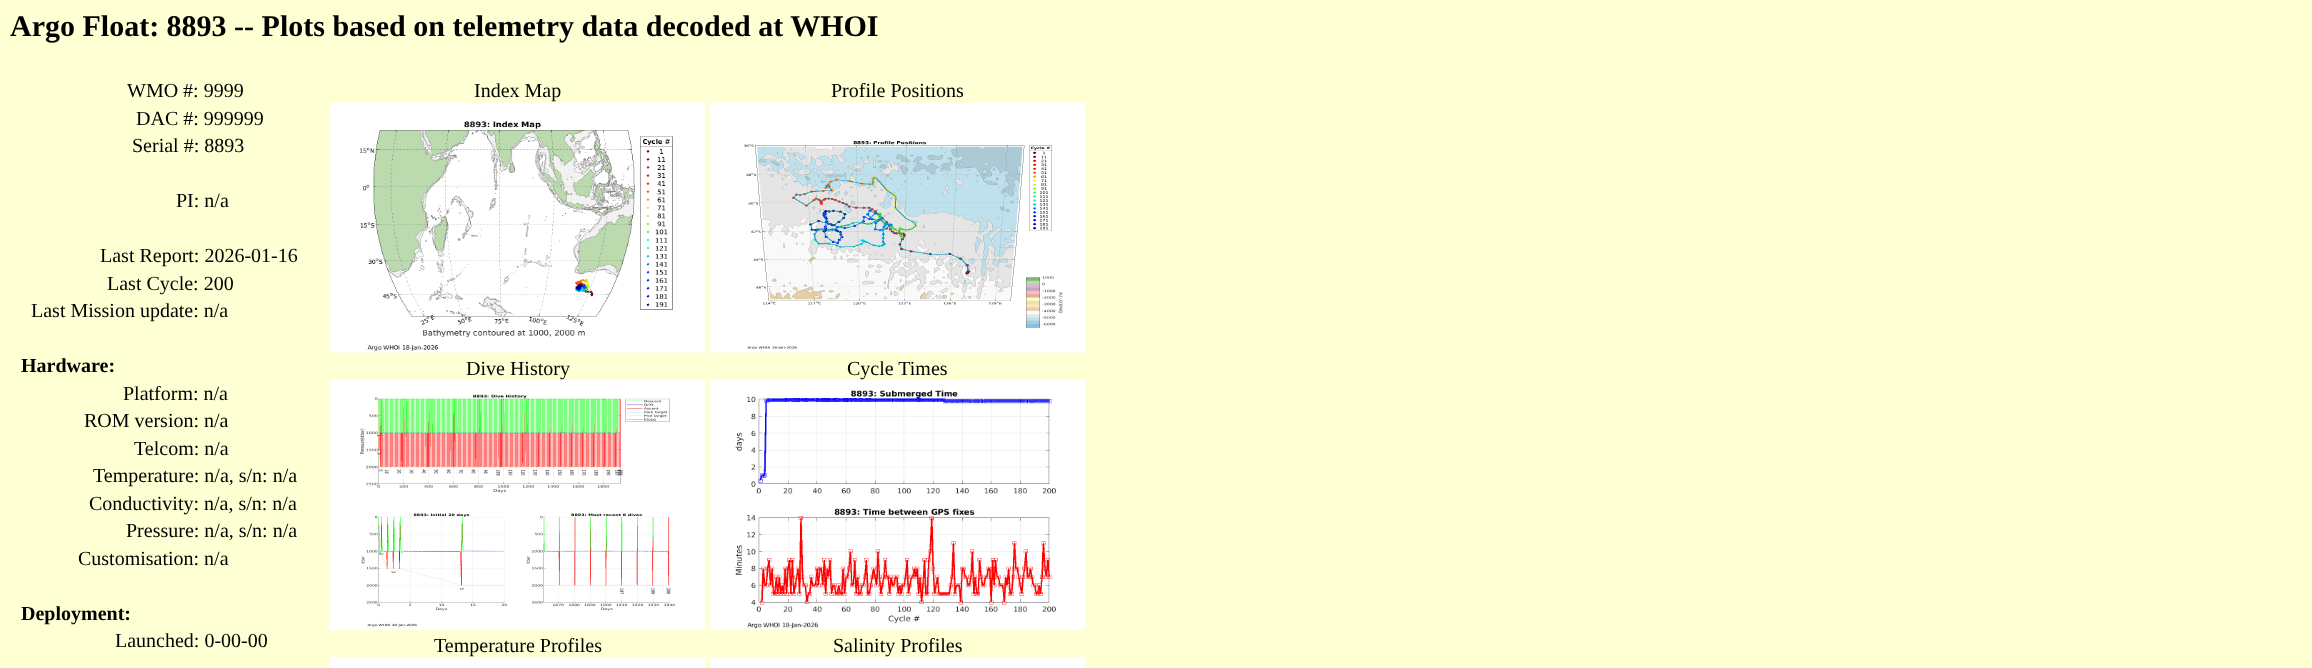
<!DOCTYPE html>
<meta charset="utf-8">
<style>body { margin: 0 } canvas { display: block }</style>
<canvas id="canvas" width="2312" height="668"></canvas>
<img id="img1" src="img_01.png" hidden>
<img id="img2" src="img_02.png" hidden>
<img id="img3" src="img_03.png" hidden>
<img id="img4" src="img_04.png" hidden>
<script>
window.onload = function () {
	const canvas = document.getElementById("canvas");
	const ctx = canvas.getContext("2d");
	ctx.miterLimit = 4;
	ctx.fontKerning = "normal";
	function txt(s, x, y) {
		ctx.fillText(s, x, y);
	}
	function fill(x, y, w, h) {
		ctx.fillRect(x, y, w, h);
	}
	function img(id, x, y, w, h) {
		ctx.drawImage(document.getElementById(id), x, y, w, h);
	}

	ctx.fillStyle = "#FFFFD4";
	fill(0, 0, 2312, 668);
	img("img1", 330, 102, 375, 251);
	img("img2", 710, 102, 375, 251);
	img("img3", 330, 380, 375, 250);
	img("img4", 710, 380, 375, 250);
	ctx.fillStyle = "#FFFFFF";
	fill(330, 657, 375, 11);
	fill(710, 657, 375, 11);
	ctx.font = "bold 30px Liberation Serif";
	ctx.fillStyle = "#000000";
	txt("Argo Float: 8893 -- Plots based on telemetry data decoded at WHOI", 10, 36);
	ctx.font = "20px Liberation Serif";
	txt("WMO #: 9999", 127, 97);
	txt("DAC #: 999999", 136, 125);
	txt("Serial #: 8893", 132, 152);
	txt("PI: n/a", 176, 207);
	txt("Last Report: 2026-01-16", 100, 262);
	txt("Last Cycle: 200", 107, 290);
	txt("Last Mission update: n/a", 31, 317);
	ctx.font = "bold 20px Liberation Serif";
	txt("Hardware:", 21, 372);
	ctx.font = "20px Liberation Serif";
	txt("Platform: n/a", 123, 400);
	txt("ROM version: n/a", 84, 427);
	txt("Telcom: n/a", 134, 455);
	txt("Temperature: n/a, s/n: n/a", 93, 482);
	txt("Conductivity: n/a, s/n: n/a", 89, 510);
	txt("Pressure: n/a, s/n: n/a", 126, 537);
	txt("Customisation: n/a", 78, 565);
	ctx.font = "bold 20px Liberation Serif";
	txt("Deployment:", 21, 620);
	ctx.font = "20px Liberation Serif";
	txt("Launched: 0-00-00", 115, 647);
	txt("Index Map", 474, 97);
	txt("Profile Positions", 831, 97);
	txt("Dive History", 466, 375);
	txt("Cycle Times", 847, 375);
	txt("Temperature Profiles", 434, 652);
	txt("Salinity Profiles", 833, 652);
};
</script>
